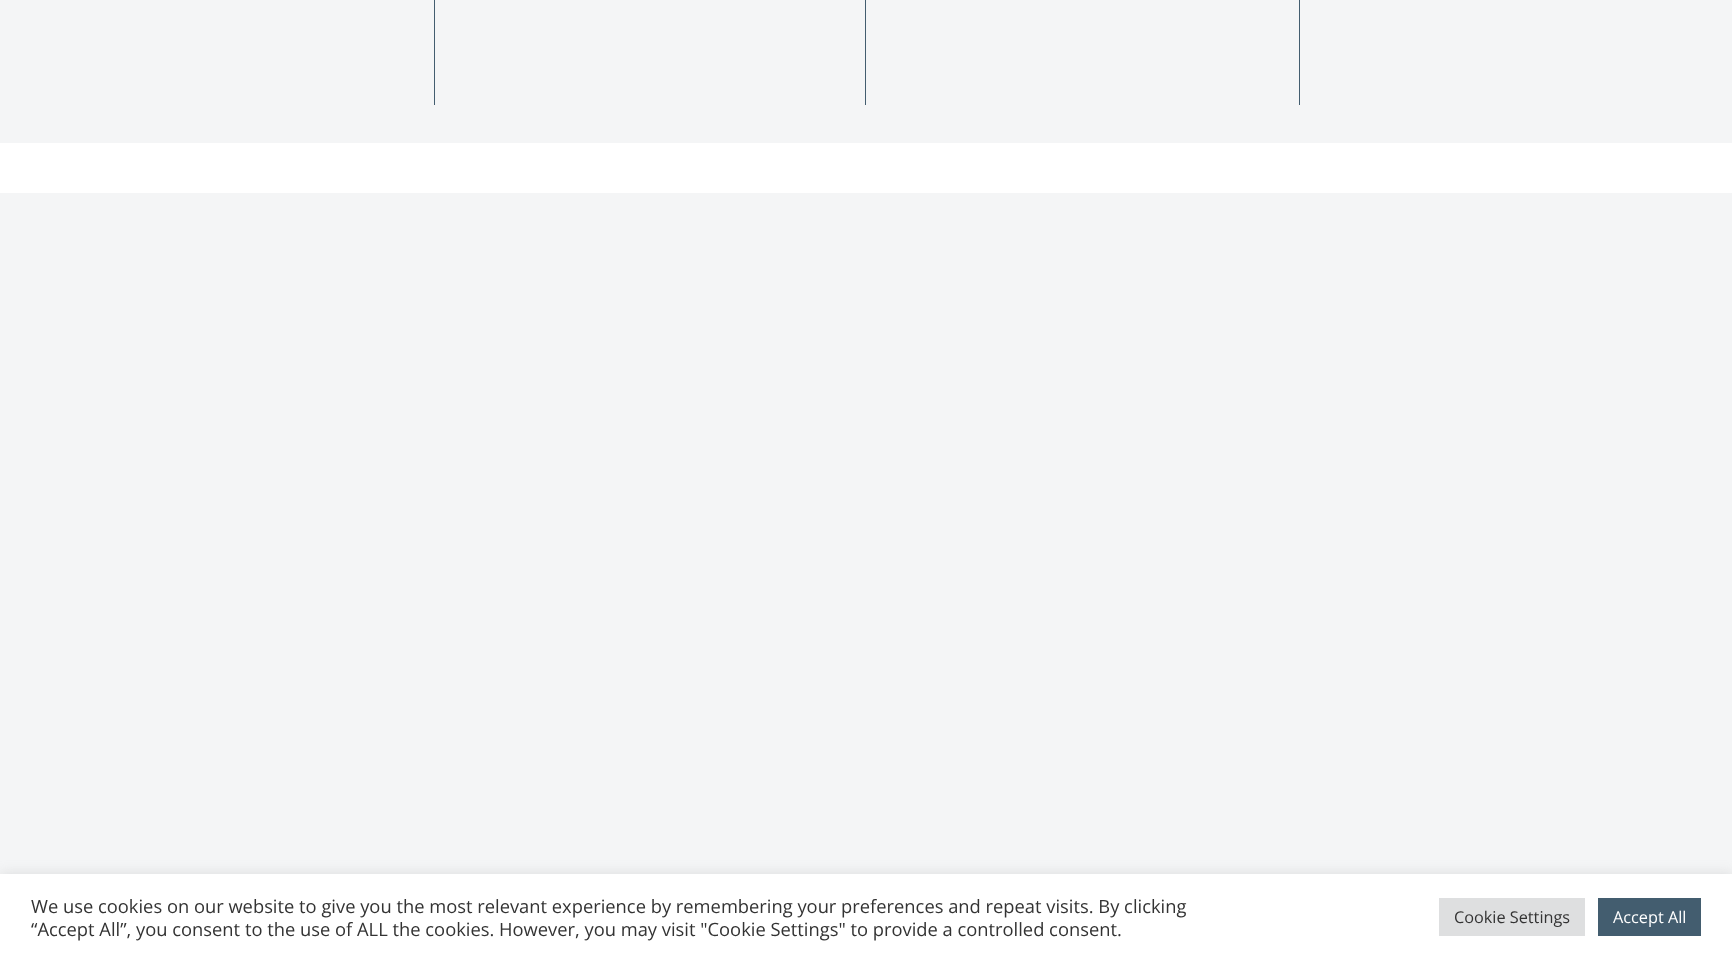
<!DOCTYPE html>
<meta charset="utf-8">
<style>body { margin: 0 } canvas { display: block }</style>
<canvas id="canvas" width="1732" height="959"></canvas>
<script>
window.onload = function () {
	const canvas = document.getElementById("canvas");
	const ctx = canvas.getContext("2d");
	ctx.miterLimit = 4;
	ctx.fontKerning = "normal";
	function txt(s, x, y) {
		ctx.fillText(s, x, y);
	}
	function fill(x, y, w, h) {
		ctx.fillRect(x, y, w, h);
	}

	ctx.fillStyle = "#FFFFFF";
	fill(0, 0, 1732, 959);
	ctx.fillStyle = "#F4F5F6";
	fill(0, 0, 1732, 143);
	ctx.fillStyle = "#435D6F";
	fill(865, 0, 1, 105);
	fill(434, 0, 1, 105);
	fill(1299, 0, 1, 105);
	ctx.fillStyle = "#F4F5F6";
	fill(0, 193, 1732, 681);
	ctx.fillStyle = "rgba(172, 171, 171, 0.3)";
	ctx.filter = "blur(6px)";
	ctx.beginPath();
	ctx.rect(0, 873, 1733, 86);
	ctx.fill();
	ctx.filter = "none";
	ctx.fillStyle = "#FFFFFF";
	fill(0, 874, 1732, 85);
	ctx.fillStyle = "#DEDFE0";
	fill(1439, 898, 146, 38);
	ctx.fillStyle = "#435D6F";
	fill(1598, 898, 103, 38);
	ctx.font = "18.33px Open Sans";
	ctx.fillStyle = "#333333";
	txt("We use cookies on our website to give you the most relevant experience by remembering your preferences and repeat visits. By clicking", 31, 913);
	txt("“Accept All”, you consent to the use of ALL the cookies. However, you may visit \"Cookie Settings\" to provide a controlled consent.", 31, 936);
	ctx.font = "16.25px Open Sans";
	txt("Cookie Settings", 1454, 923);
	ctx.fillStyle = "#FFFFFF";
	txt("Accept All", 1613, 923);
};
</script>
